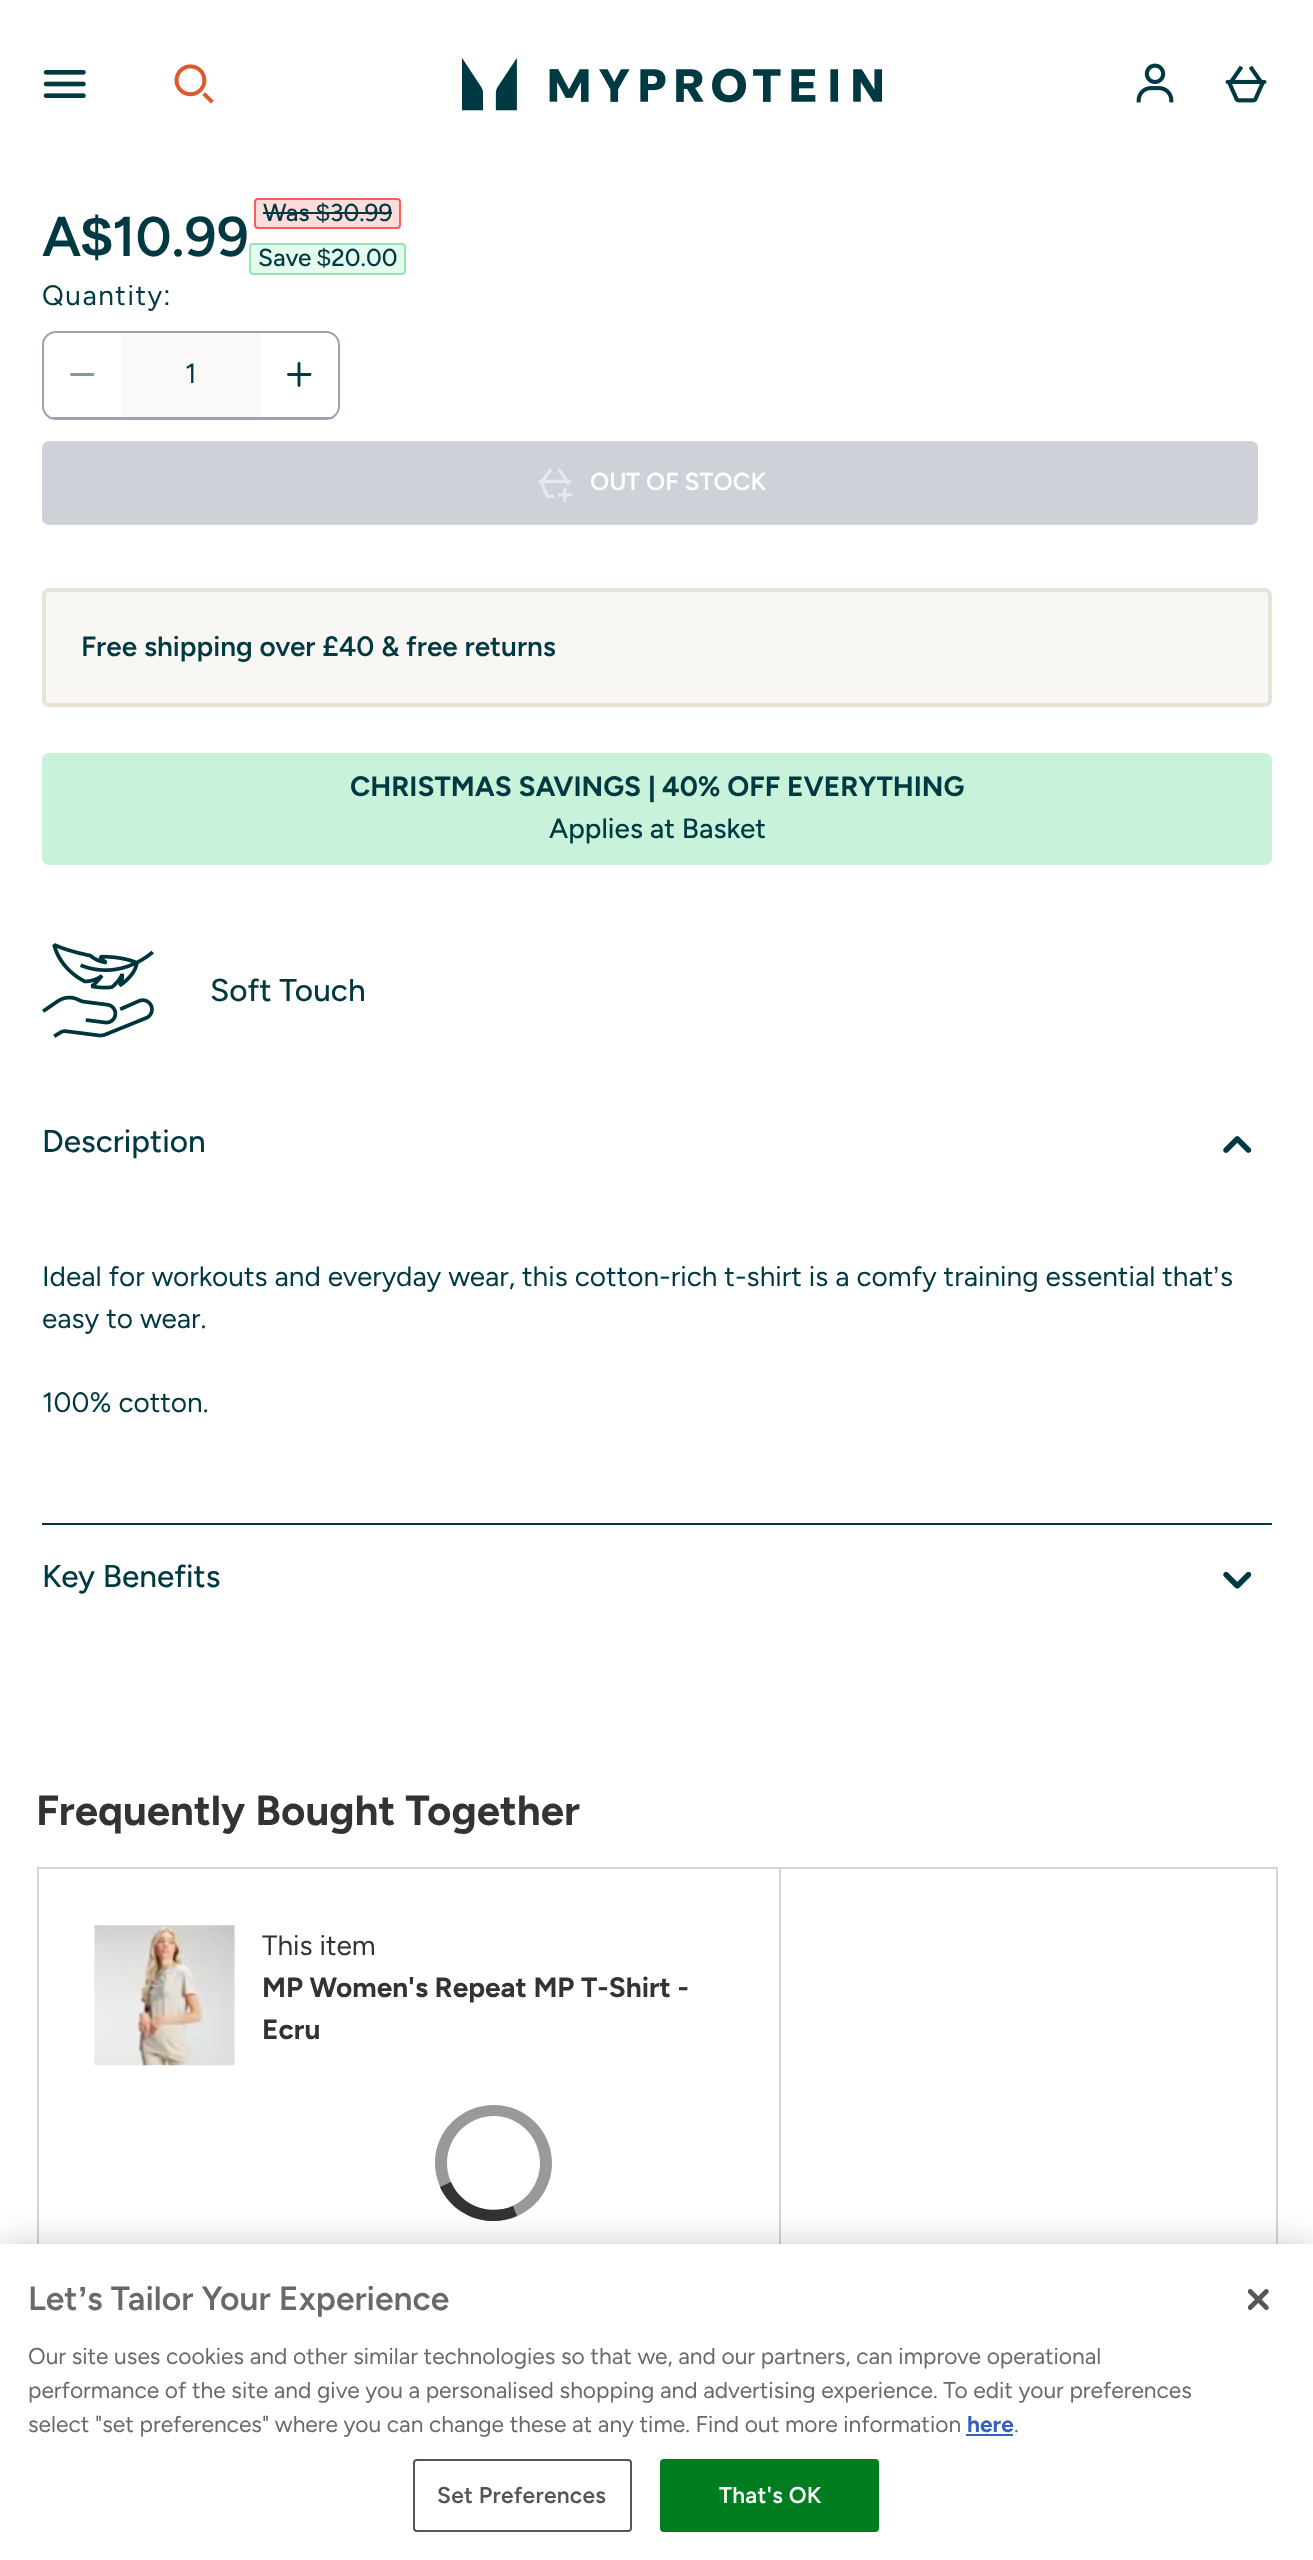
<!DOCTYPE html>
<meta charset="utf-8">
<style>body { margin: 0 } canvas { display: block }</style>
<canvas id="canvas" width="1313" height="2560"></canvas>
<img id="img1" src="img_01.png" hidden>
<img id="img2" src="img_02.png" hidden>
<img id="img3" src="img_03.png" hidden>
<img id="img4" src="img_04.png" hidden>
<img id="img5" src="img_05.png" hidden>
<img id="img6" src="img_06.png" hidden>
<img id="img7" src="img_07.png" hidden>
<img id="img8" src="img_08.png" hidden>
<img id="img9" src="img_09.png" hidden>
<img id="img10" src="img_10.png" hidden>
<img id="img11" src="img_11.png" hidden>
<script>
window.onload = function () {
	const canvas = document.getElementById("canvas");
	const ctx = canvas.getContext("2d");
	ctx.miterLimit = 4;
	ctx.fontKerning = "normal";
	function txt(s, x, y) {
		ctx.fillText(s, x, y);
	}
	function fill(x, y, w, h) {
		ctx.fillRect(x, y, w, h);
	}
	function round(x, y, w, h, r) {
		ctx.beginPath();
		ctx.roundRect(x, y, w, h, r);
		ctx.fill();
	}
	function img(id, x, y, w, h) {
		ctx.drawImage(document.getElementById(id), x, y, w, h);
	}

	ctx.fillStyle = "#FFFFFF";
	fill(0, 0, 1313, 2560);
	img("img1", 43, 70, 43, 28);
	img("img2", 174, 64, 40, 40);
	img("img3", 462, 58, 420, 53);
	img("img4", 1136, 63, 38, 40);
	img("img5", 1225, 65, 42, 38);
	ctx.fillStyle = "#FFDBDA";
	ctx.beginPath();
	ctx.roundRect(255, 199, 145, 29, 3);
	ctx.fill();
	ctx.strokeStyle = "#FF5B5A";
	ctx.lineWidth = 2;
	ctx.stroke();
	ctx.fillStyle = "#003942";
	fill(263, 212, 129, 2);
	ctx.fillStyle = "#E5FBEE";
	ctx.beginPath();
	ctx.roundRect(250, 244, 155, 30, 3);
	ctx.fill();
	ctx.strokeStyle = "#94E5B5";
	ctx.stroke();
	ctx.beginPath();
	ctx.roundRect(43, 332, 296, 87, 13);
	ctx.strokeStyle = "#9CA3AF";
	ctx.stroke();
	ctx.fillStyle = "#9CA3AF";
	fill(49, 417, 284, 2);
	ctx.beginPath();
	ctx.moveTo(93, 374.5);
	ctx.lineTo(71.5, 374.5);
	ctx.strokeStyle = "#809CA1";
	ctx.lineWidth = 2.9;
	ctx.lineCap = "round";
	ctx.lineJoin = "round";
	ctx.stroke();
	ctx.fillStyle = "#FBF9F7";
	fill(121, 333, 140, 84);
	ctx.beginPath();
	ctx.moveTo(299, 363.5);
	ctx.lineTo(299, 385.5);
	ctx.moveTo(310, 374.5);
	ctx.lineTo(288.5, 374.5);
	ctx.strokeStyle = "#003942";
	ctx.stroke();
	ctx.fillStyle = "#CED1D7";
	round(42, 441, 1216, 84, 7);
	img("img6", 538, 468, 34, 34);
	ctx.fillStyle = "#F8F7F4";
	ctx.beginPath();
	ctx.roundRect(44, 590, 1226, 115, 5);
	ctx.fill();
	ctx.strokeStyle = "#E9E2D8";
	ctx.lineWidth = 4;
	ctx.lineJoin = "miter";
	ctx.stroke();
	ctx.fillStyle = "#C9F2DA";
	round(42, 753, 1230, 112, 7);
	img("img7", 42, 943, 112, 95);
	img("img8", 1223, 1136, 29, 17);
	ctx.fillStyle = "#003942";
	fill(42, 1523, 1230, 2);
	img("img9", 1223, 1571, 29, 18);
	ctx.strokeStyle = "#D1D5DB";
	ctx.lineWidth = 2;
	ctx.strokeRect(38, 1868, 1239, 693);
	ctx.fillStyle = "#D1D5DB";
	fill(779, 1869, 2, 375);
	img("img10", 94, 1925, 141, 141);
	ctx.fillStyle = "#999999";
	ctx.beginPath();
	ctx.moveTo(494, 2105);
	ctx.bezierCurveTo(461, 2105, 435, 2131, 435, 2163);
	ctx.bezierCurveTo(435, 2195, 461, 2221, 494, 2221);
	ctx.bezierCurveTo(526, 2221, 552, 2195, 552, 2163);
	ctx.bezierCurveTo(552, 2131, 526, 2105, 494, 2105);
	ctx.closePath();
	ctx.moveTo(494, 2210);
	ctx.bezierCurveTo(468, 2210, 447, 2189, 447, 2163);
	ctx.bezierCurveTo(447, 2137, 468, 2116, 494, 2116);
	ctx.bezierCurveTo(519, 2116, 540, 2137, 540, 2163);
	ctx.bezierCurveTo(540, 2189, 519, 2210, 494, 2210);
	ctx.closePath();
	ctx.fill();
	ctx.fillStyle = "#333333";
	ctx.beginPath();
	ctx.moveTo(451, 2182);
	ctx.lineTo(440, 2187);
	ctx.bezierCurveTo(453, 2216, 488, 2229, 517, 2216);
	ctx.lineTo(513, 2206);
	ctx.bezierCurveTo(489, 2216, 461, 2206, 451, 2182);
	ctx.closePath();
	ctx.fill();
	ctx.fillStyle = "rgba(0, 0, 0, 0.2)";
	ctx.filter = "blur(16px)";
	ctx.beginPath();
	ctx.rect(0, 2244, 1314, 316);
	ctx.fill();
	ctx.filter = "none";
	ctx.fillStyle = "#FFFFFF";
	fill(0, 2244, 1313, 316);
	ctx.fillStyle = "#3860BE";
	fill(966, 2434, 47, 2);
	ctx.beginPath();
	ctx.roundRect(414, 2460, 217, 71, 3);
	ctx.strokeStyle = "#555555";
	ctx.stroke();
	ctx.fillStyle = "#007D1E";
	ctx.beginPath();
	ctx.roundRect(661, 2460, 217, 71, 3);
	ctx.fill();
	ctx.strokeStyle = "#007D1E";
	ctx.stroke();
	img("img11", 1248, 2289, 21, 21);
	ctx.font = "600 56px Figtree";
	ctx.fillStyle = "#003942";
	txt("A", 42, 256);
	ctx.font = "bold 56px Liberation Sans";
	txt("$", 81, 256);
	ctx.font = "600 56px Figtree";
	txt("10.99", 112, 256);
	ctx.font = "500 24.5px Figtree";
	txt("Was", 263, 221);
	ctx.font = "24.5px Liberation Sans";
	txt("$", 316, 221);
	ctx.font = "500 24.5px Figtree";
	txt("30.99", 330, 221);
	txt("Save", 258, 266);
	ctx.font = "24.5px Liberation Sans";
	txt("$", 317, 266);
	ctx.font = "500 24.5px Figtree";
	txt("20.00", 331, 266);
	ctx.letterSpacing = "1.5px";
	ctx.font = "28px Figtree";
	txt("Quantity", 42, 305);
	ctx.font = "28px Liberation Sans";
	txt(":", 163, 305);
	ctx.letterSpacing = "0px";
	ctx.font = "28px Figtree";
	txt("1", 185, 383);
	ctx.font = "600 24.5px Figtree";
	ctx.fillStyle = "#FFFFFF";
	txt("OUT OF STOCK", 590, 490);
	ctx.font = "600 28px Figtree";
	ctx.fillStyle = "#003942";
	txt("Free shipping over £40 & free returns", 81, 656);
	ctx.font = "bold 28px Figtree";
	txt("CHRISTMAS SAVINGS", 350, 796);
	ctx.font = "bold 28px Liberation Sans";
	txt("|", 648, 796);
	ctx.font = "bold 28px Figtree";
	txt("40% OFF EVERYTHING", 662, 796);
	ctx.font = "500 28px Figtree";
	txt("Applies at Basket", 549, 838);
	ctx.font = "500 31.5px Figtree";
	txt("Soft Touch", 210, 1001);
	txt("Description", 42, 1152);
	ctx.font = "28px Figtree";
	txt("Ideal for workouts and everyday wear, this cotton-rich t-shirt is a comfy training essential that", 42, 1286);
	ctx.font = "28px Liberation Sans";
	txt("’", 1213, 1286);
	ctx.font = "28px Figtree";
	txt("s", 1220, 1286);
	txt("easy to wear.", 42, 1328);
	txt("100% cotton.", 42, 1412);
	ctx.font = "500 31.5px Figtree";
	txt("Key Benefits", 42, 1587);
	ctx.font = "bold 42px Figtree";
	ctx.fillStyle = "#333333";
	txt("Frequently Bought Together", 36, 1825);
	ctx.font = "28px Figtree";
	txt("This item", 262, 1955);
	ctx.font = "bold 28px Figtree";
	txt("MP Women's Repeat MP T-Shirt -", 262, 1997);
	txt("Ecru", 262, 2039);
	ctx.font = "600 33.6px Figtree";
	ctx.fillStyle = "#696969";
	txt("Let", 28, 2310);
	ctx.font = "bold 33.6px Liberation Sans";
	txt("’", 78, 2310);
	ctx.font = "600 33.6px Figtree";
	txt("s Tailor Your Experience", 87, 2310);
	ctx.font = "22.75px Figtree";
	txt("Our site uses cookies and other similar technologies so that we, and our partners, can improve operational", 28, 2364);
	txt("performance of the site and give you a personalised shopping and advertising experience. To edit your preferences", 28, 2398);
	txt("select \"set preferences\" where you can change these at any time. Find out more information", 28, 2432);
	ctx.font = "bold 22.75px Figtree";
	ctx.fillStyle = "#3860BE";
	txt("here", 967, 2432);
	ctx.font = "22.75px Figtree";
	ctx.fillStyle = "#696969";
	txt(".", 1014, 2432);
	ctx.letterSpacing = "0.25px";
	ctx.font = "600 22.75px Figtree";
	ctx.fillStyle = "#555555";
	txt("Set Preferences", 437, 2503);
	ctx.fillStyle = "#FFFFFF";
	txt("That's OK", 719, 2503);
};
</script>
